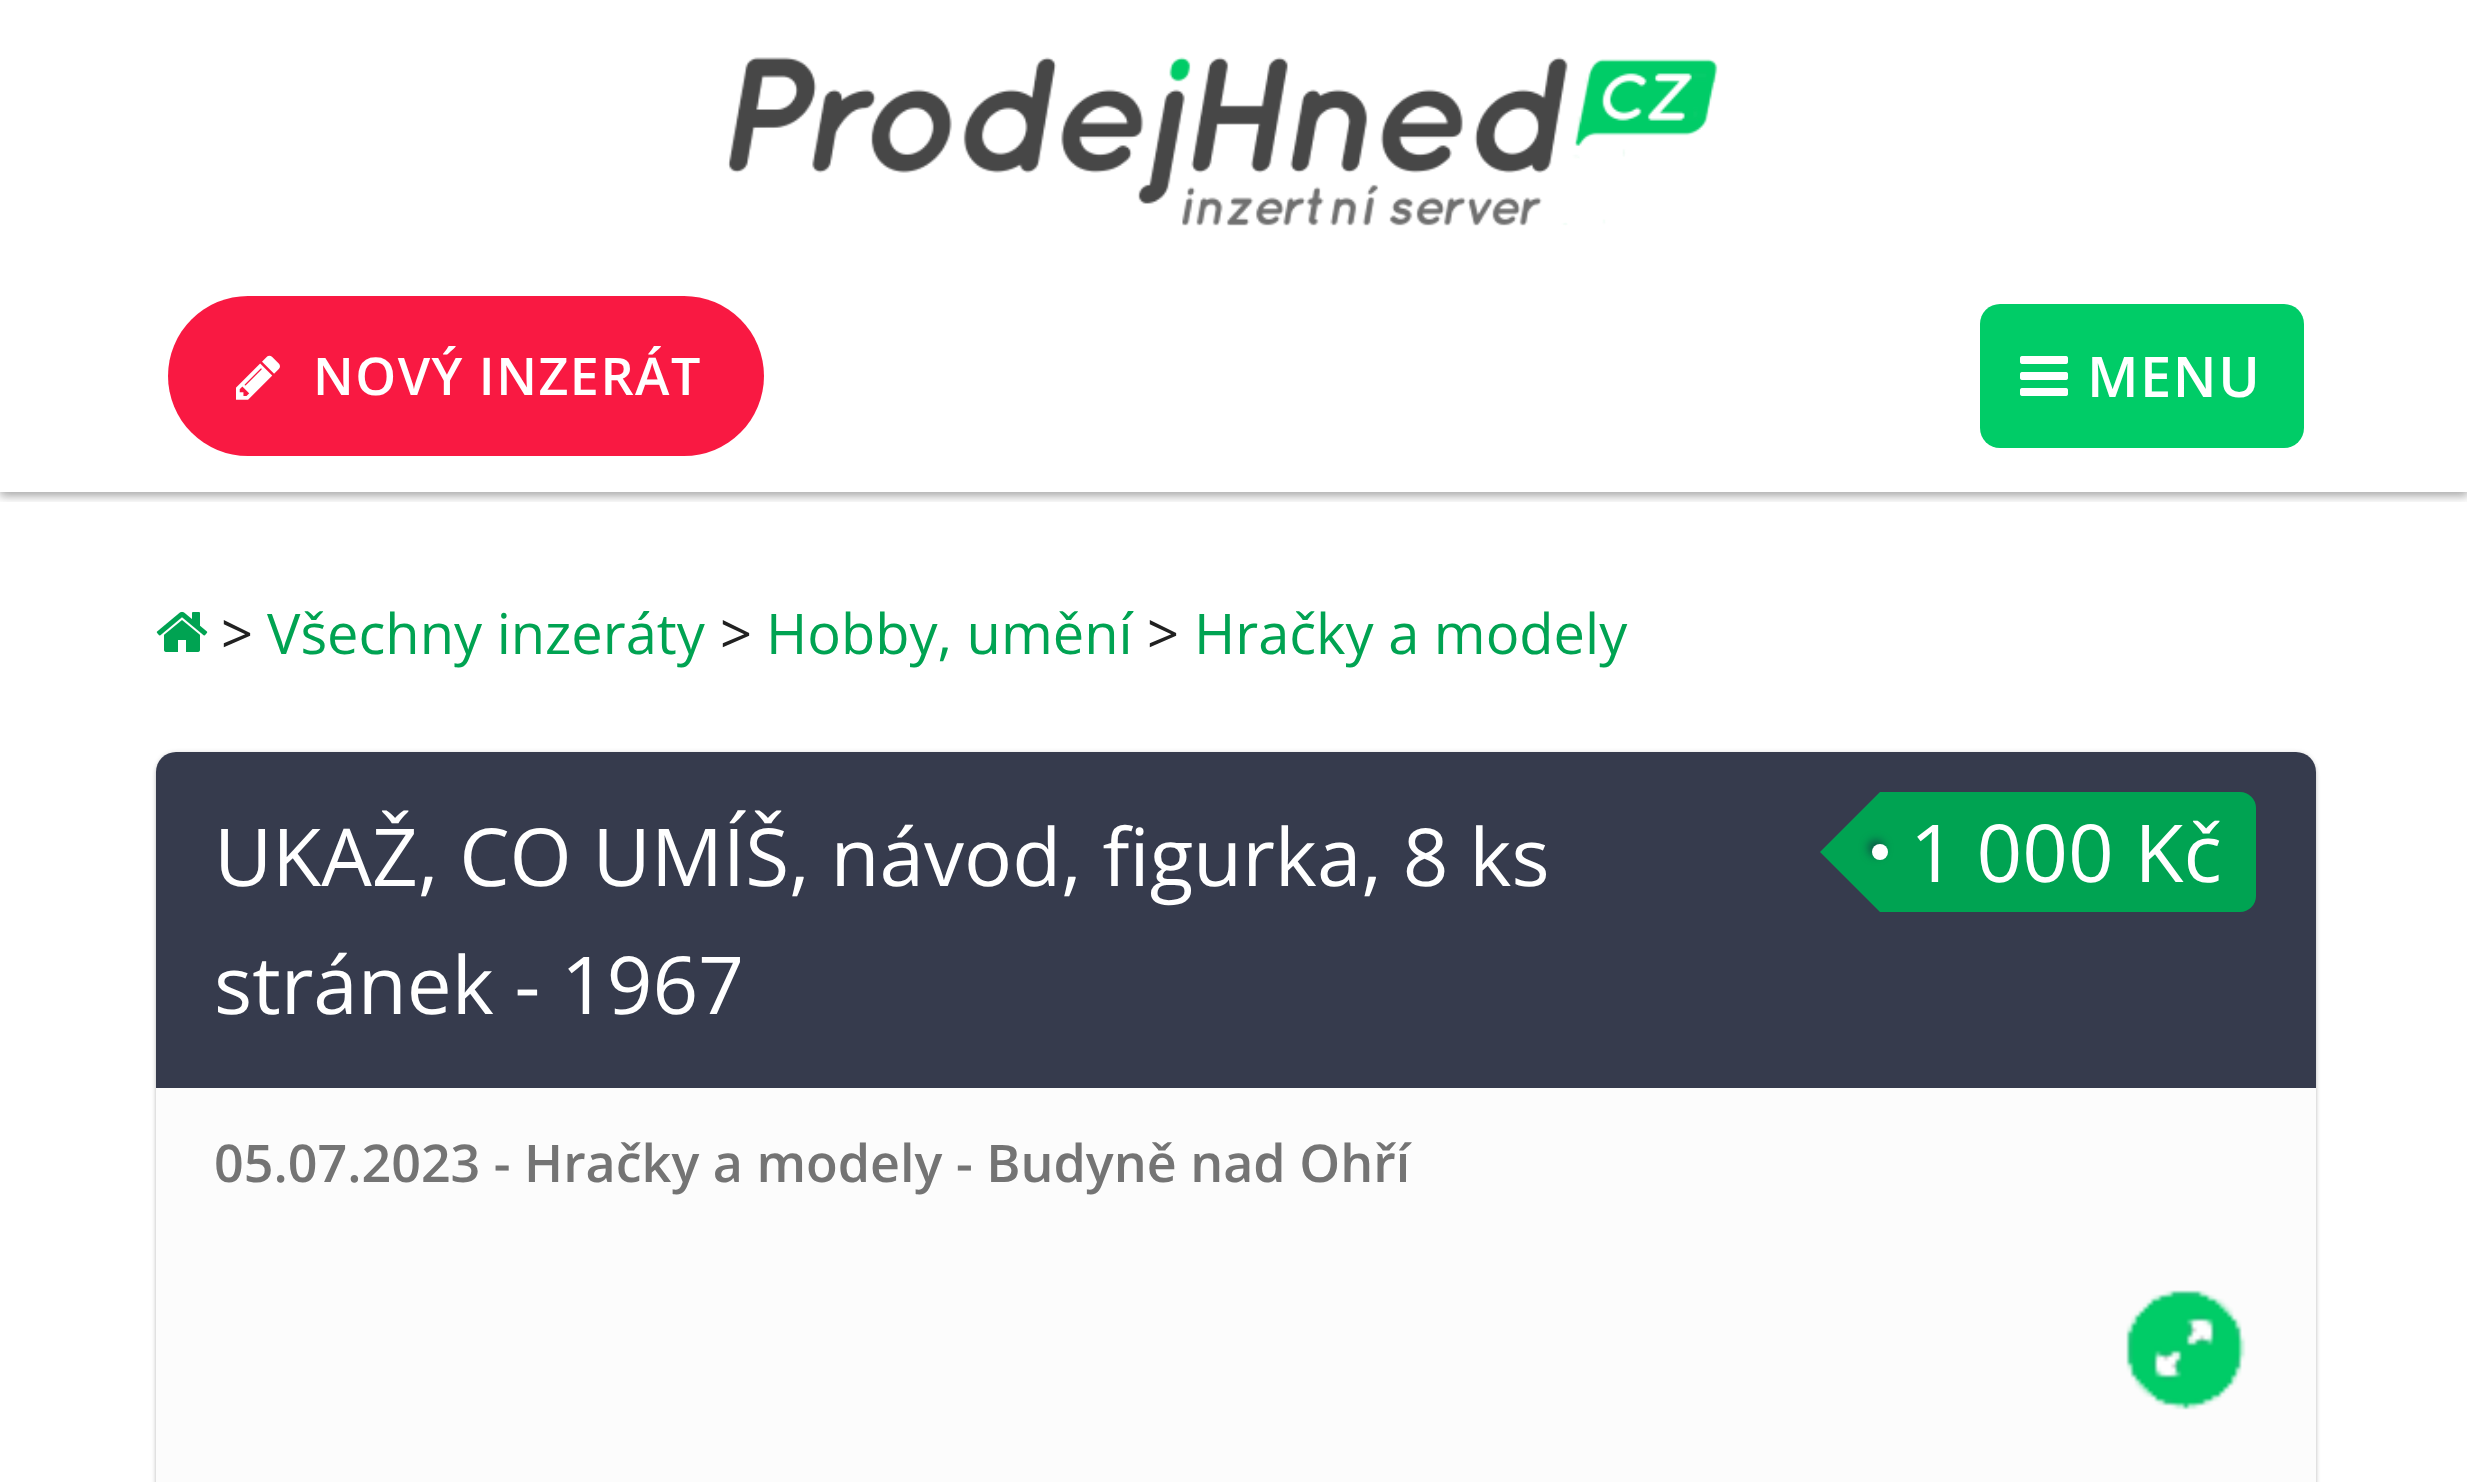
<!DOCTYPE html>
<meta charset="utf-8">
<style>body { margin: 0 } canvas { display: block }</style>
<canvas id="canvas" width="2467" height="1482"></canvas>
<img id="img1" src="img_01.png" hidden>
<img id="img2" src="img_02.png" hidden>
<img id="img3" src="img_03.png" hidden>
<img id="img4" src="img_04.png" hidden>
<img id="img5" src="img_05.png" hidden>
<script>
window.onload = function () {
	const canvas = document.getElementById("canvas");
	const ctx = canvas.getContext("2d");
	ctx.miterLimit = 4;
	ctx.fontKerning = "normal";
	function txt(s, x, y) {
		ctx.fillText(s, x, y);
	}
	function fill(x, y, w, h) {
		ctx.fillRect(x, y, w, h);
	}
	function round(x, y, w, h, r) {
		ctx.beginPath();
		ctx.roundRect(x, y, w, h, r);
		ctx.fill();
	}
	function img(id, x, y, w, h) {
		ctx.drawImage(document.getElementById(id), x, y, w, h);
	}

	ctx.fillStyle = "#FFFFFF";
	fill(0, 0, 2467, 1482);
	ctx.save();
	ctx.beginPath();
	ctx.rect(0, 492, 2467, 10);
	ctx.clip();
	ctx.fillStyle = "rgba(0, 0, 0, 0.24)";
	ctx.filter = "blur(4px)";
	ctx.beginPath();
	ctx.rect(0, 4, 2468, 492);
	ctx.fill();
	ctx.filter = "none";
	ctx.fillStyle = "rgba(0, 0, 0, 0.12)";
	ctx.filter = "blur(6px)";
	ctx.beginPath();
	ctx.rect(0, 4, 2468, 492);
	ctx.fill();
	ctx.filter = "none";
	ctx.restore();
	img("img1", 727, 57, 991, 169);
	ctx.fillStyle = "#F91942";
	round(168, 296, 596, 160, 80);
	img("img2", 236, 355, 44, 45);
	ctx.fillStyle = "#00CC67";
	round(1980, 304, 324, 144, 20);
	img("img3", 2020, 356, 48, 40);
	img("img4", 156, 611, 52, 41);
	ctx.fillStyle = "rgba(0, 0, 0, 0.12)";
	ctx.filter = "blur(2px)";
	ctx.beginPath();
	ctx.roundRect(156, 752, 2160, 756, 20);
	ctx.fill();
	ctx.filter = "none";
	ctx.fillStyle = "rgba(0, 0, 0, 0.16)";
	ctx.filter = "blur(2px)";
	ctx.beginPath();
	ctx.roundRect(156, 756, 2160, 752, 20);
	ctx.fill();
	ctx.filter = "none";
	ctx.fillStyle = "#FCFCFC";
	round(156, 752, 2160, 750, 20);
	ctx.fillStyle = "#363B4D";
	ctx.beginPath();
	ctx.roundRect(156, 752, 2160, 336, [20, 20, 0, 0]);
	ctx.fill();
	ctx.fillStyle = "#00A352";
	ctx.beginPath();
	ctx.roundRect(1880, 792, 376, 120, [0, 16, 16, 0]);
	ctx.fill();
	ctx.beginPath();
	ctx.moveTo(1880, 792);
	ctx.lineTo(1880, 912);
	ctx.lineTo(1820, 852);
	ctx.closePath();
	ctx.fill();
	ctx.fillStyle = "#0C5647";
	ctx.filter = "blur(4px)";
	ctx.beginPath();
	ctx.roundRect(1868, 840, 16, 16, 8);
	ctx.fill();
	ctx.filter = "none";
	ctx.fillStyle = "#FFFFFF";
	ctx.beginPath();
	ctx.arc(1880, 852, 8, 0, Math.PI * 2);
	ctx.fill();
	img("img5", 2126, 1290, 120, 120);
	ctx.letterSpacing = "1.5px";
	ctx.font = "600 52px Open Sans";
	txt("NOVÝ INZERÁT", 313, 395);
	ctx.font = "600 56px Open Sans";
	txt("MENU", 2087, 397);
	ctx.letterSpacing = "0px";
	ctx.font = "56px Open Sans";
	ctx.fillStyle = "#212121";
	txt(">", 221, 654);
	ctx.fillStyle = "#00A352";
	txt("Všechny inzeráty", 267, 654);
	ctx.fillStyle = "#212121";
	txt(">", 720, 654);
	ctx.fillStyle = "#00A352";
	txt("Hobby, umění", 766, 654);
	ctx.fillStyle = "#212121";
	txt(">", 1147, 654);
	ctx.fillStyle = "#00A352";
	txt("Hračky a modely", 1194, 654);
	ctx.font = "80px Open Sans";
	ctx.fillStyle = "#FFFFFF";
	txt("UKAŽ, CO UMÍŠ, návod, figurka, 8 ks", 214, 886);
	txt("1 000 Kč", 1910, 882);
	txt("stránek - 1967", 214, 1014);
	ctx.font = "600 52px Open Sans";
	ctx.fillStyle = "#747474";
	txt("05.07.2023 - Hračky a modely - Budyně nad Ohří", 214, 1182);
};
</script>
